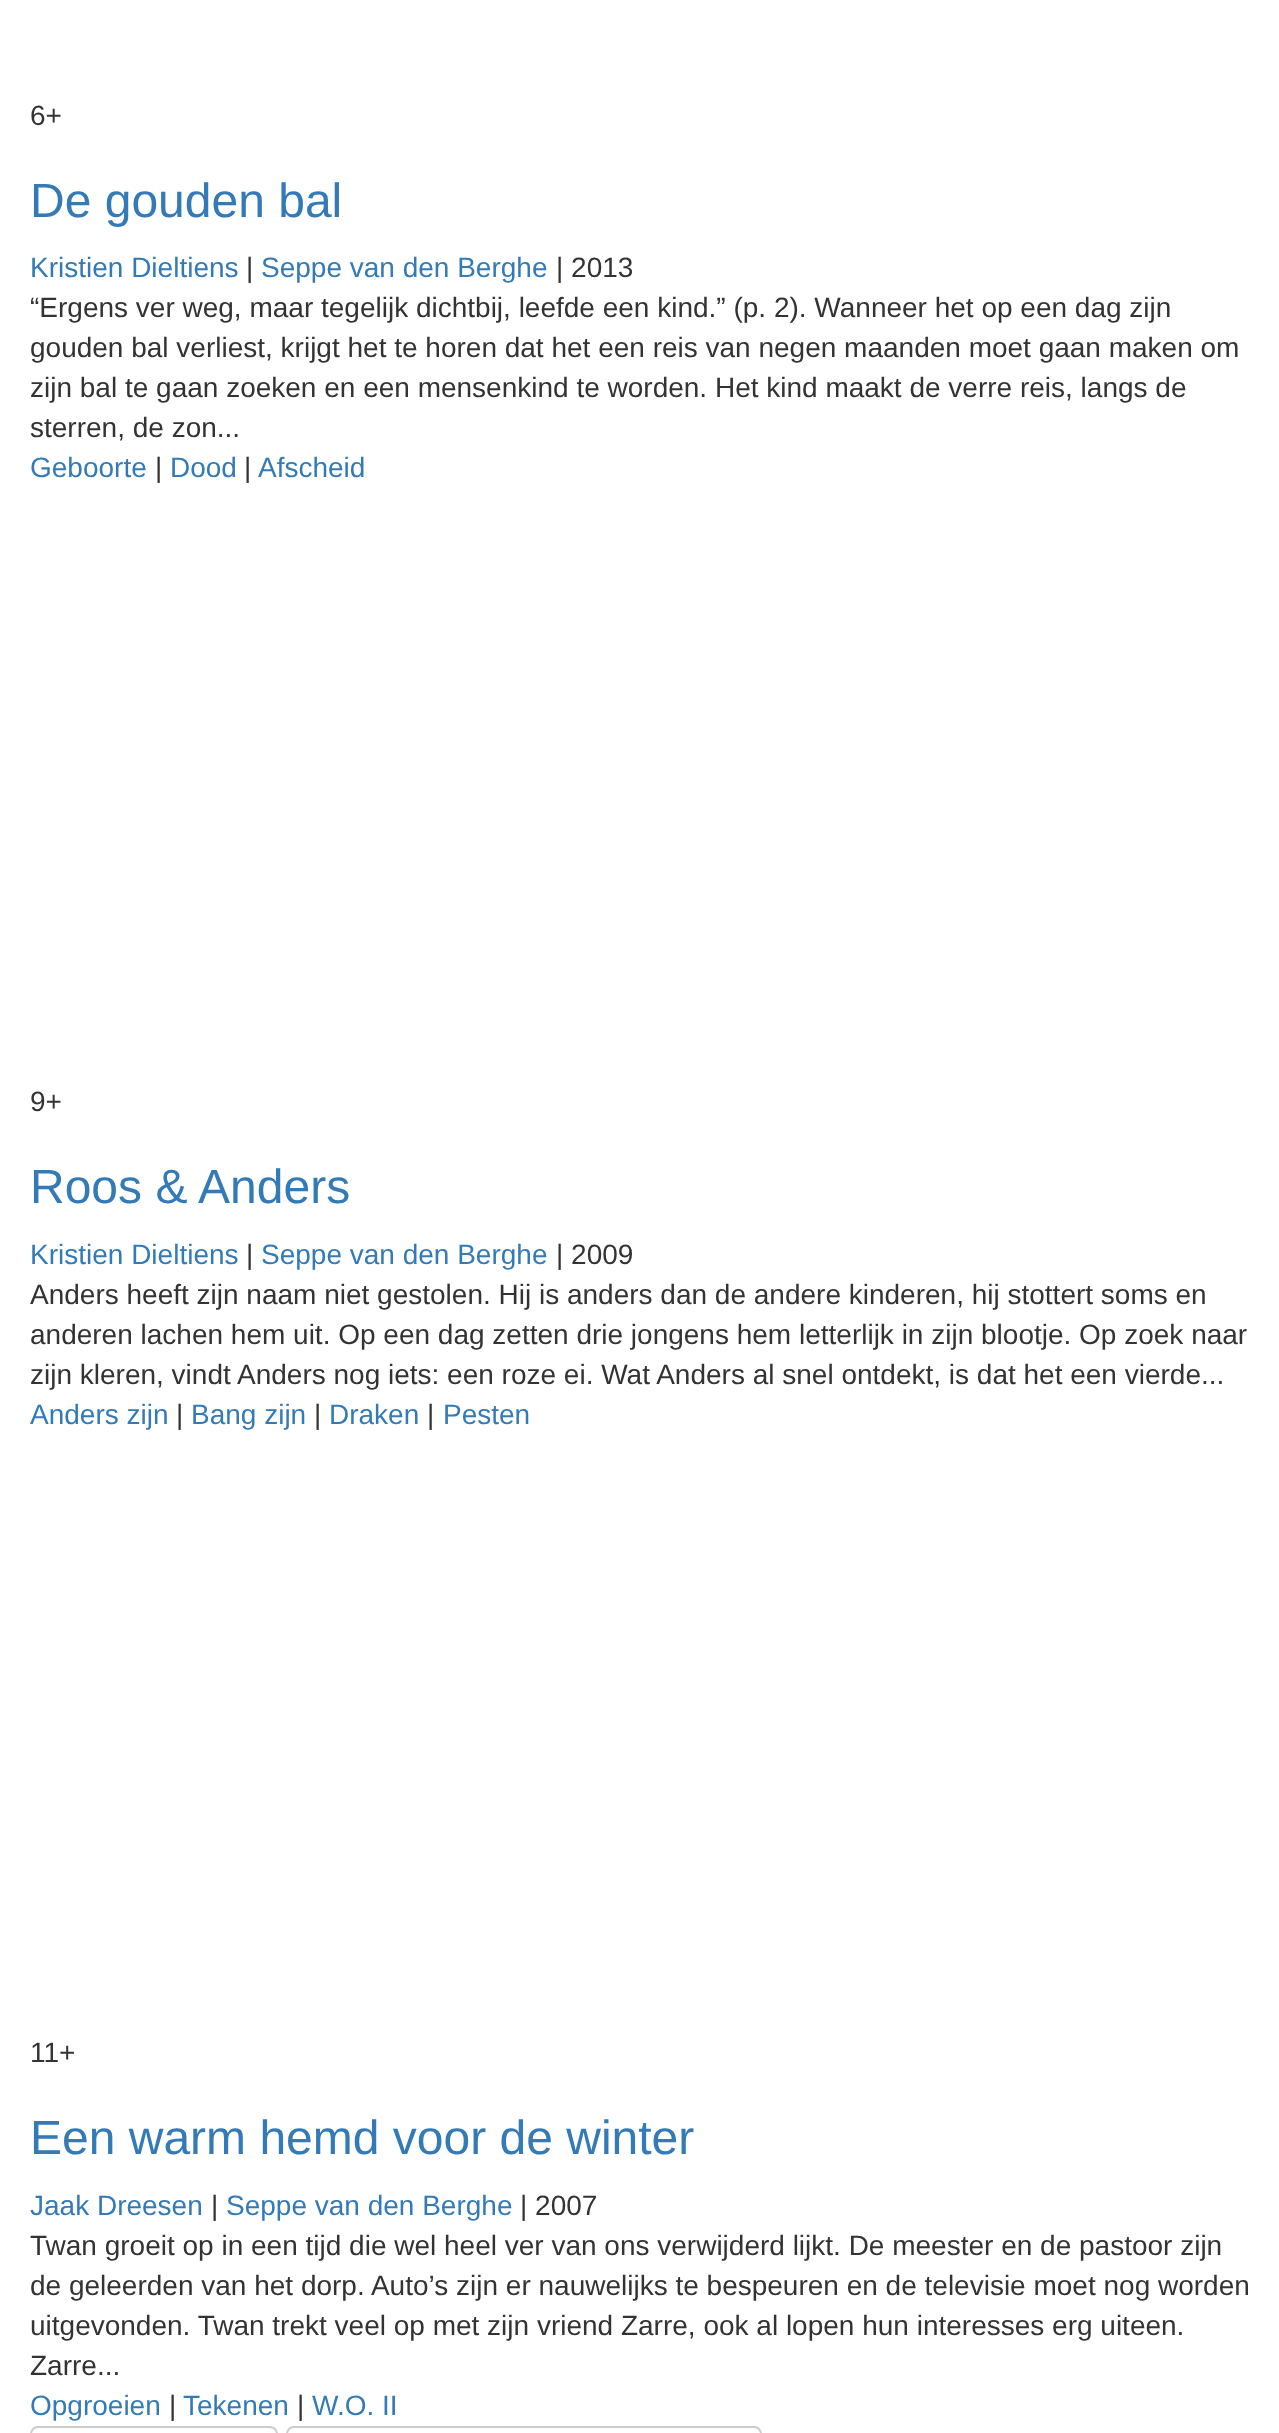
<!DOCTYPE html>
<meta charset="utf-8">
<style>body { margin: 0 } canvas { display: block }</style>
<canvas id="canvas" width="1279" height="2433"></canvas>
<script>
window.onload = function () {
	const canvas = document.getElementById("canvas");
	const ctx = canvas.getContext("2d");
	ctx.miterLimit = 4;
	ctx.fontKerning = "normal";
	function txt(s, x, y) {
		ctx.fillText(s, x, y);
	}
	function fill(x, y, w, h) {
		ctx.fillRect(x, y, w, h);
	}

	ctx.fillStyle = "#FFFFFF";
	fill(0, 0, 1279, 2433);
	ctx.beginPath();
	ctx.roundRect(31, 2427, 246, 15, 7);
	ctx.strokeStyle = "#CCCCCC";
	ctx.lineWidth = 2;
	ctx.stroke();
	ctx.beginPath();
	ctx.roundRect(287, 2427, 474, 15, 7);
	ctx.stroke();
	ctx.font = "28px Liberation Sans";
	ctx.fillStyle = "#333333";
	txt("6+", 30, 125);
	ctx.font = "48px Liberation Sans";
	ctx.fillStyle = "#337AB7";
	txt("De gouden bal", 30, 217);
	ctx.font = "28px Liberation Sans";
	txt("Kristien Dieltiens", 30, 277);
	ctx.fillStyle = "#333333";
	txt("|", 246, 277);
	ctx.fillStyle = "#337AB7";
	txt("Seppe van den Berghe", 261, 277);
	ctx.fillStyle = "#333333";
	txt("| 2013", 556, 277);
	txt("“Ergens ver weg, maar tegelijk dichtbij, leefde een kind.” (p. 2). Wanneer het op een dag zijn", 30, 317);
	txt("gouden bal verliest, krijgt het te horen dat het een reis van negen maanden moet gaan maken om", 30, 357);
	txt("zijn bal te gaan zoeken en een mensenkind te worden. Het kind maakt de verre reis, langs de", 30, 397);
	txt("sterren, de zon...", 30, 437);
	ctx.fillStyle = "#337AB7";
	txt("Geboorte", 30, 477);
	ctx.fillStyle = "#333333";
	txt("|", 155, 477);
	ctx.fillStyle = "#337AB7";
	txt("Dood", 170, 477);
	ctx.fillStyle = "#333333";
	txt("|", 244, 477);
	ctx.fillStyle = "#337AB7";
	txt("Afscheid", 258, 477);
	ctx.fillStyle = "#333333";
	txt("9+", 30, 1111);
	ctx.font = "48px Liberation Sans";
	ctx.fillStyle = "#337AB7";
	txt("Roos & Anders", 30, 1203);
	ctx.font = "28px Liberation Sans";
	txt("Kristien Dieltiens", 30, 1264);
	ctx.fillStyle = "#333333";
	txt("|", 246, 1264);
	ctx.fillStyle = "#337AB7";
	txt("Seppe van den Berghe", 261, 1264);
	ctx.fillStyle = "#333333";
	txt("| 2009", 556, 1264);
	txt("Anders heeft zijn naam niet gestolen. Hij is anders dan de andere kinderen, hij stottert soms en", 30, 1304);
	txt("anderen lachen hem uit. Op een dag zetten drie jongens hem letterlijk in zijn blootje. Op zoek naar", 30, 1344);
	txt("zijn kleren, vindt Anders nog iets: een roze ei. Wat Anders al snel ontdekt, is dat het een vierde...", 30, 1384);
	ctx.fillStyle = "#337AB7";
	txt("Anders zijn", 30, 1424);
	ctx.fillStyle = "#333333";
	txt("|", 176, 1424);
	ctx.fillStyle = "#337AB7";
	txt("Bang zijn", 191, 1424);
	ctx.fillStyle = "#333333";
	txt("|", 314, 1424);
	ctx.fillStyle = "#337AB7";
	txt("Draken", 329, 1424);
	ctx.fillStyle = "#333333";
	txt("|", 427, 1424);
	ctx.fillStyle = "#337AB7";
	txt("Pesten", 443, 1424);
	ctx.fillStyle = "#333333";
	txt("11+", 30, 2062);
	ctx.font = "48px Liberation Sans";
	ctx.fillStyle = "#337AB7";
	txt("Een warm hemd voor de winter", 30, 2154);
	ctx.font = "28px Liberation Sans";
	txt("Jaak Dreesen", 30, 2215);
	ctx.fillStyle = "#333333";
	txt("|", 211, 2215);
	ctx.fillStyle = "#337AB7";
	txt("Seppe van den Berghe", 226, 2215);
	ctx.fillStyle = "#333333";
	txt("| 2007", 520, 2215);
	txt("Twan groeit op in een tijd die wel heel ver van ons verwijderd lijkt. De meester en de pastoor zijn", 30, 2255);
	txt("de geleerden van het dorp. Auto’s zijn er nauwelijks te bespeuren en de televisie moet nog worden", 30, 2295);
	txt("uitgevonden. Twan trekt veel op met zijn vriend Zarre, ook al lopen hun interesses erg uiteen.", 30, 2335);
	txt("Zarre...", 30, 2375);
	ctx.fillStyle = "#337AB7";
	txt("Opgroeien", 30, 2415);
	ctx.fillStyle = "#333333";
	txt("|", 169, 2415);
	ctx.fillStyle = "#337AB7";
	txt("Tekenen", 183, 2415);
	ctx.fillStyle = "#333333";
	txt("|", 297, 2415);
	ctx.fillStyle = "#337AB7";
	txt("W.O. II", 312, 2415);
};
</script>
